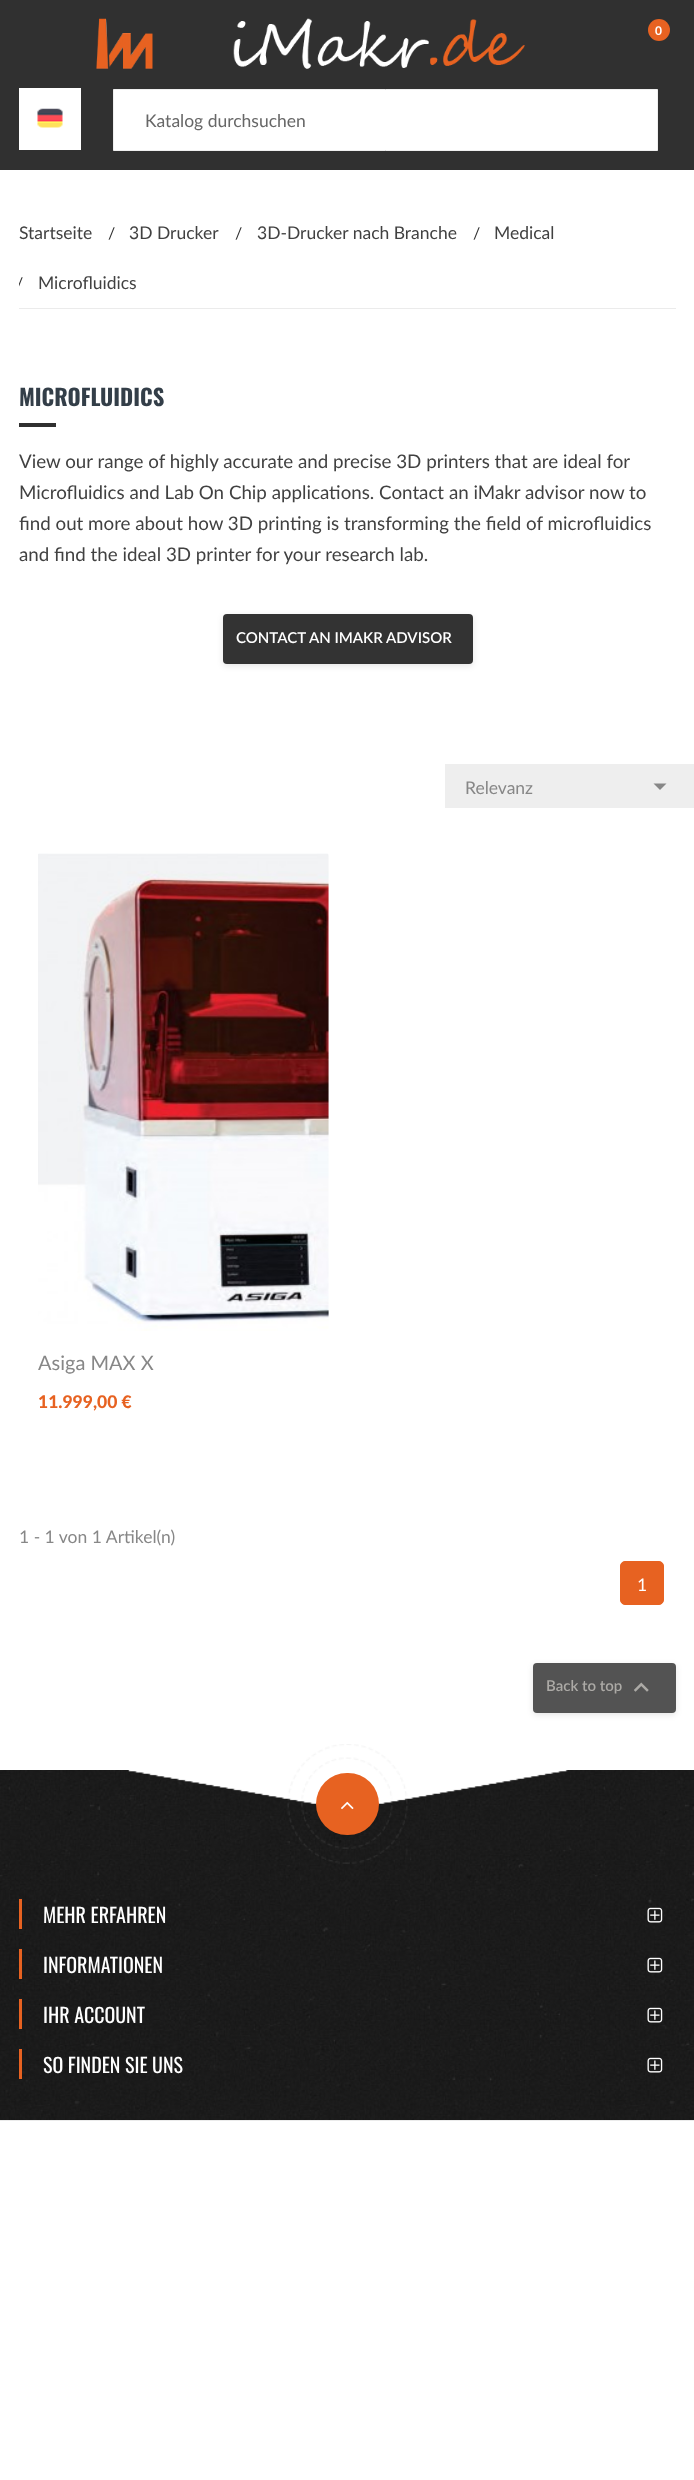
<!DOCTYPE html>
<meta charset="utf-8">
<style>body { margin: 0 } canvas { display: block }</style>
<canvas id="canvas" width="694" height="2480"></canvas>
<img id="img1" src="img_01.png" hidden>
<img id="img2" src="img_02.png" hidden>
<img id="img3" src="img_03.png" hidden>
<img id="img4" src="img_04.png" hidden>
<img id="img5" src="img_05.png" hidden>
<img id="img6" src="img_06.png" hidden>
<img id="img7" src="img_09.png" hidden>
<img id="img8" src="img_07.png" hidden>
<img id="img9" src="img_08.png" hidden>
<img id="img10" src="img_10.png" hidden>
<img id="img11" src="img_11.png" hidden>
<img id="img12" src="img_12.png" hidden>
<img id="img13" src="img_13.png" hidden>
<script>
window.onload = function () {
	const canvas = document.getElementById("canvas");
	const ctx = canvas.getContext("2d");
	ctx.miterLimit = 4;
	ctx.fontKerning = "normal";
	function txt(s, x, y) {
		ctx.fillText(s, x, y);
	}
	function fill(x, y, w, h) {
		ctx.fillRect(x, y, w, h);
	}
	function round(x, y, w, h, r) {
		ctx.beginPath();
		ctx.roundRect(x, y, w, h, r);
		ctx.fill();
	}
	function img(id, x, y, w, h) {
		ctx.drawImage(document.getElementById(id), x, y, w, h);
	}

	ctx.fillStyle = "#FFFFFF";
	fill(0, 0, 694, 2480);
	ctx.fillStyle = "#303030";
	fill(0, 0, 694, 170);
	img("img1", 96, 18, 57, 51);
	img("img2", 233, 18, 292, 51);
	ctx.fillStyle = "#E76221";
	ctx.beginPath();
	ctx.arc(659, 30, 11, 0, Math.PI * 2);
	ctx.fill();
	ctx.fillStyle = "#FFFFFF";
	fill(19, 88, 62, 62);
	img("img3", 37, 108, 26, 20);
	ctx.beginPath();
	ctx.rect(113.5, 89.5, 544, 61);
	ctx.fill();
	ctx.strokeStyle = "#EFEFEF";
	ctx.stroke();
	ctx.fillStyle = "#EBEBEB";
	fill(19, 308, 657, 1);
	ctx.fillStyle = "#303030";
	fill(19, 423, 37, 4);
	ctx.fillStyle = "rgba(0, 0, 0, 0.1)";
	ctx.filter = "blur(3px)";
	ctx.beginPath();
	ctx.roundRect(223, 616, 250, 50, 4);
	ctx.fill();
	ctx.filter = "none";
	ctx.fillStyle = "#333333";
	round(223, 614, 250, 50, 4);
	ctx.fillStyle = "#EEEEEE";
	fill(445, 764, 249, 44);
	ctx.fillStyle = "#878787";
	ctx.beginPath();
	ctx.moveTo(653.5, 783.5);
	ctx.lineTo(666.5, 783.5);
	ctx.lineTo(660, 790);
	ctx.closePath();
	ctx.fill();
	img("img4", 38, 853, 291, 478);
	ctx.fillStyle = "#E76221";
	ctx.beginPath();
	ctx.roundRect(620.5, 1561.5, 43, 43, 4.5);
	ctx.fill();
	ctx.strokeStyle = "#E76221";
	ctx.stroke();
	ctx.fillStyle = "rgba(0, 0, 0, 0.1)";
	ctx.filter = "blur(3px)";
	ctx.beginPath();
	ctx.roundRect(533, 1665, 143, 50, 4);
	ctx.fill();
	ctx.filter = "none";
	ctx.fillStyle = "#535353";
	round(533, 1663, 143, 50, 4);
	img("img5", 634, 1682, 15, 10);
	img("img6", 0, 1770, 694, 350);
	img("img7", 128, 1770, 440, 35);
	img("img8", 287, 1744, 121, 120);
	ctx.fillStyle = "#E76221";
	round(316, 1773, 63, 62, 31);
	img("img9", 341, 1801, 13, 9);
	fill(19, 1899, 3, 30);
	img("img10", 647, 1907, 16, 16);
	fill(19, 1949, 3, 30);
	img("img11", 647, 1957, 16, 16);
	fill(19, 1999, 3, 30);
	img("img12", 647, 2007, 16, 16);
	fill(19, 2049, 3, 30);
	img("img13", 647, 2057, 16, 16);
	ctx.fillStyle = "#EBEBEB";
	fill(0, 2120, 694, 1);
	ctx.font = "bold 12px Lato";
	ctx.fillStyle = "#FFFFFF";
	txt("0", 655, 35);
	ctx.font = "17.5px Lato";
	ctx.fillStyle = "#676767";
	txt("Katalog durchsuchen", 145, 127);
	ctx.fillStyle = "#414141";
	txt("Startseite", 19, 239);
	ctx.font = "16px Lato";
	ctx.fillStyle = "#343434";
	txt("/", 108, 239);
	ctx.font = "17.5px Lato";
	ctx.fillStyle = "#414141";
	txt("3D Drucker", 129, 239);
	ctx.font = "16px Lato";
	ctx.fillStyle = "#343434";
	txt("/", 235, 239);
	ctx.font = "17.5px Lato";
	ctx.fillStyle = "#414141";
	txt("3D-Drucker nach Branche", 257, 239);
	ctx.font = "16px Lato";
	ctx.fillStyle = "#343434";
	txt("/", 473, 239);
	ctx.font = "17.5px Lato";
	ctx.fillStyle = "#414141";
	txt("Medical", 494, 239);
	ctx.save();
	ctx.beginPath();
	ctx.rect(19, 208, 657, 100);
	ctx.clip();
	ctx.font = "16px Lato";
	ctx.fillStyle = "#343434";
	txt("/", 16, 289);
	ctx.restore();
	txt("Microfluidics", 38, 289);
	ctx.font = "bold 22.5px Oswald";
	ctx.fillStyle = "#333E48";
	txt("MICROFLUIDICS", 19, 406);
	ctx.font = "18.75px Lato";
	ctx.fillStyle = "#414141";
	txt("View our range of highly accurate and precise 3D printers that are ideal for", 19, 468);
	txt("Microfluidics and Lab On Chip applications. Contact an iMakr advisor now to", 19, 499);
	txt("find out more about how 3D printing is transforming the field of microfluidics", 19, 530);
	txt("and find the ideal 3D printer for your research lab.", 19, 561);
	ctx.font = "600 15px Lato";
	ctx.fillStyle = "#FFFFFF";
	txt("CONTACT AN IMAKR ADVISOR", 236, 643);
	ctx.font = "17.5px Lato";
	ctx.fillStyle = "#878787";
	txt("Relevanz", 465, 794);
	ctx.font = "20px Lato";
	txt("Asiga MAX X", 38, 1370);
	ctx.font = "900 17.5px Lato";
	ctx.fillStyle = "#E76221";
	txt("11.999,00 €", 38, 1408);
	ctx.font = "17.5px Lato";
	ctx.fillStyle = "#878787";
	txt("1 - 1 von 1 Artikel(n)", 19, 1543);
	ctx.fillStyle = "#FFFFFF";
	txt("1", 637, 1591);
	ctx.font = "600 15px Lato";
	ctx.fillStyle = "#ACAAA6";
	txt("Back to top", 546, 1691);
	ctx.font = "20px Oswald";
	ctx.fillStyle = "#FFFFFF";
	txt("MEHR ERFAHREN", 43, 1923);
	txt("INFORMATIONEN", 43, 1973);
	txt("IHR ACCOUNT", 43, 2023);
	txt("SO FINDEN SIE UNS", 43, 2073);
};
</script>
